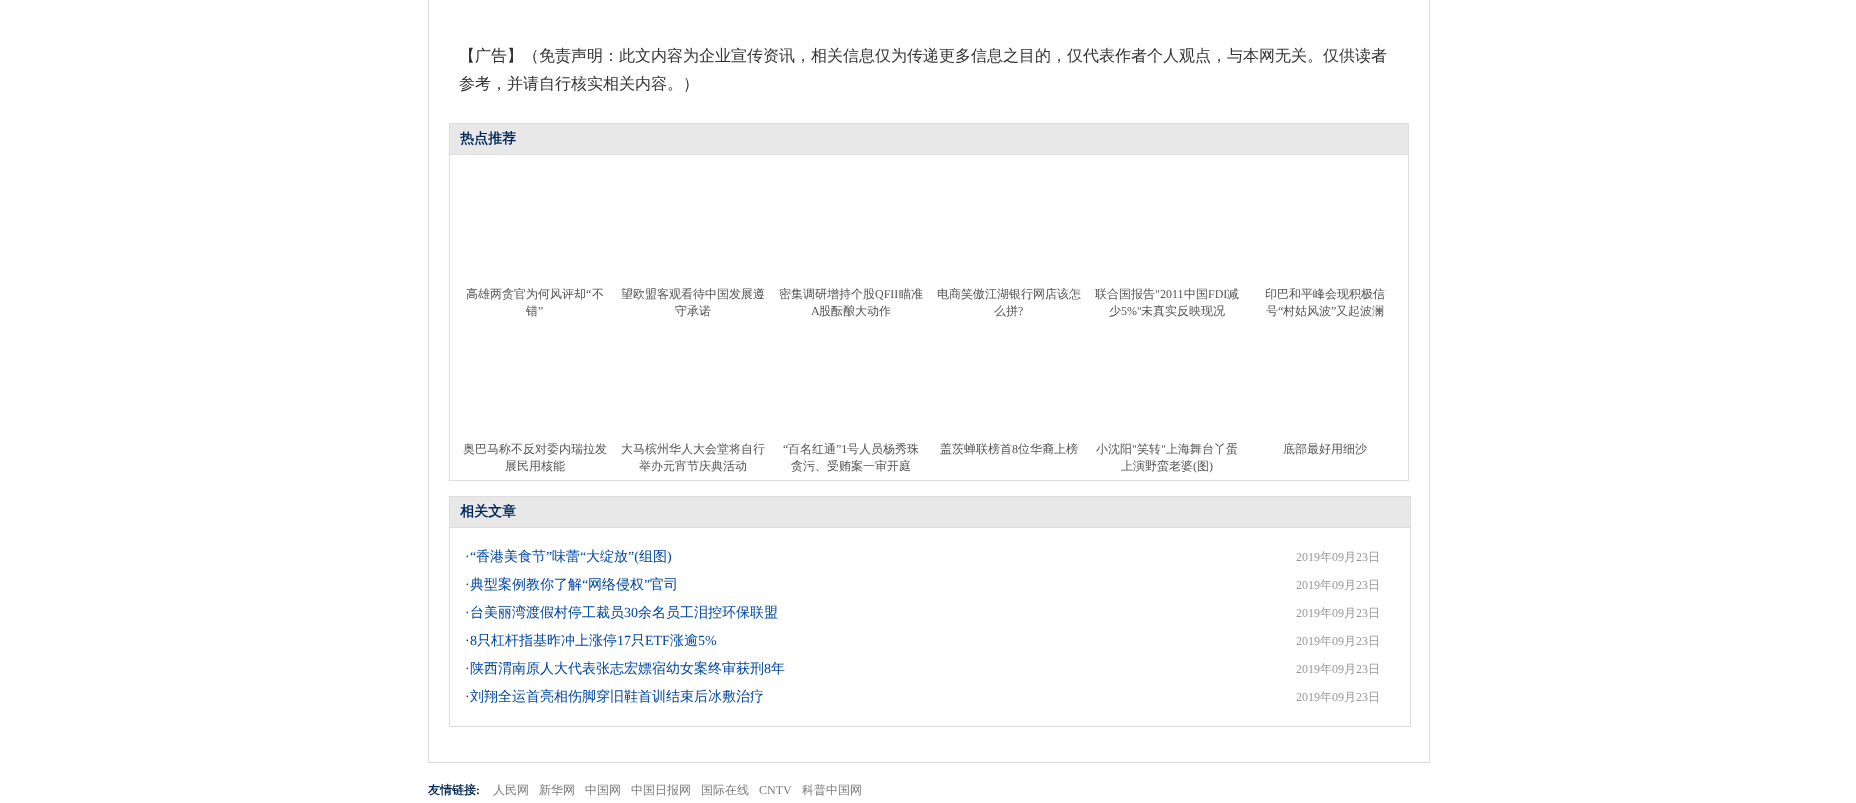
<!DOCTYPE html>
<meta charset="utf-8">
<style>body { margin: 0 } canvas { display: block }</style>
<canvas id="canvas" width="1856" height="803"></canvas>
<script>
window.onload = function () {
	const canvas = document.getElementById("canvas");
	const ctx = canvas.getContext("2d");
	ctx.miterLimit = 4;
	ctx.fontKerning = "normal";
	function txt(s, x, y) {
		ctx.fillText(s, x, y);
	}
	function fill(x, y, w, h) {
		ctx.fillRect(x, y, w, h);
	}

	ctx.fillStyle = "#FFFFFF";
	fill(0, 0, 1856, 803);
	ctx.strokeStyle = "#DDDDDD";
	ctx.strokeRect(428.5, -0.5, 1001, 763);
	ctx.strokeRect(449.5, 123.5, 959, 357);
	ctx.fillStyle = "#E8E8E8";
	fill(450, 124, 958, 30);
	ctx.fillStyle = "#DDDDDD";
	fill(450, 154, 958, 1);
	ctx.strokeRect(449.5, 496.5, 961, 230);
	ctx.fillStyle = "#E8E8E8";
	fill(450, 497, 960, 30);
	ctx.fillStyle = "#DDDDDD";
	fill(450, 527, 960, 1);
	ctx.font = "500 16px WenQuanYi Zen Hei";
	ctx.fillStyle = "#333333";
	txt("【广告】（免责声明：此文内容为企业宣传资讯，相关信息仅为传递更多信息之目的，仅代表作者个人观点，与本网无关。仅供读者", 459, 61);
	txt("参考，并请自行核实相关内容。）", 459, 89);
	ctx.font = "bold 14px WenQuanYi Zen Hei";
	ctx.fillStyle = "#002758";
	txt("热点推荐", 460, 143);
	ctx.font = "500 12px WenQuanYi Zen Hei";
	ctx.fillStyle = "#555555";
	txt("高雄两贪官为何风评却", 466, 298);
	ctx.font = "12px Liberation Serif";
	txt("“", 586, 298);
	ctx.font = "500 12px WenQuanYi Zen Hei";
	txt("不", 592, 298);
	txt("错", 526, 315);
	ctx.font = "12px Liberation Serif";
	txt("”", 538, 315);
	ctx.font = "500 12px WenQuanYi Zen Hei";
	txt("望欧盟客观看待中国发展遵", 621, 298);
	txt("守承诺", 675, 315);
	txt("密集调研增持个股", 779, 298);
	ctx.font = "12px Liberation Serif";
	txt("QFII", 875, 298);
	ctx.font = "500 12px WenQuanYi Zen Hei";
	txt("瞄准", 899, 298);
	ctx.font = "12px Liberation Serif";
	txt("A", 811, 315);
	ctx.font = "500 12px WenQuanYi Zen Hei";
	txt("股酝酿大动作", 819, 315);
	txt("电商笑傲江湖银行网店该怎", 937, 298);
	txt("么拼", 994, 315);
	ctx.font = "12px Liberation Serif";
	txt("?", 1018, 315);
	ctx.font = "500 12px WenQuanYi Zen Hei";
	txt("联合国报告", 1095, 298);
	ctx.font = "12px Liberation Serif";
	txt("\"2011", 1155, 298);
	ctx.font = "500 12px WenQuanYi Zen Hei";
	txt("中国", 1184, 298);
	ctx.font = "12px Liberation Serif";
	txt("FDI", 1208, 298);
	ctx.font = "500 12px WenQuanYi Zen Hei";
	txt("减", 1227, 298);
	txt("少", 1109, 315);
	ctx.font = "12px Liberation Serif";
	txt("5%\"", 1121, 315);
	ctx.font = "500 12px WenQuanYi Zen Hei";
	txt("未真实反映现况", 1141, 315);
	txt("印巴和平峰会现积极信", 1265, 298);
	txt("号", 1266, 315);
	ctx.font = "12px Liberation Serif";
	txt("“", 1278, 315);
	ctx.font = "500 12px WenQuanYi Zen Hei";
	txt("村姑风波", 1283, 315);
	ctx.font = "12px Liberation Serif";
	txt("”", 1331, 315);
	ctx.font = "500 12px WenQuanYi Zen Hei";
	txt("又起波澜", 1336, 315);
	txt("奥巴马称不反对委内瑞拉发", 463, 453);
	txt("展民用核能", 505, 470);
	txt("大马槟州华人大会堂将自行", 621, 453);
	txt("举办元宵节庆典活动", 639, 470);
	ctx.font = "12px Liberation Serif";
	txt("“", 783, 453);
	ctx.font = "500 12px WenQuanYi Zen Hei";
	txt("百名红通", 788, 453);
	ctx.font = "12px Liberation Serif";
	txt("”1", 836, 453);
	ctx.font = "500 12px WenQuanYi Zen Hei";
	txt("号人员杨秀珠", 847, 453);
	txt("贪污、受贿案一审开庭", 791, 470);
	txt("盖茨蝉联榜首", 940, 453);
	ctx.font = "12px Liberation Serif";
	txt("8", 1012, 453);
	ctx.font = "500 12px WenQuanYi Zen Hei";
	txt("位华裔上榜", 1018, 453);
	txt("小沈阳", 1096, 453);
	ctx.font = "12px Liberation Serif";
	txt("\"", 1132, 453);
	ctx.font = "500 12px WenQuanYi Zen Hei";
	txt("笑转", 1137, 453);
	ctx.font = "12px Liberation Serif";
	txt("\"", 1161, 453);
	ctx.font = "500 12px WenQuanYi Zen Hei";
	txt("上海舞台丫蛋", 1166, 453);
	txt("上演野蛮老婆", 1121, 470);
	ctx.font = "12px Liberation Serif";
	txt("(", 1193, 470);
	ctx.font = "500 12px WenQuanYi Zen Hei";
	txt("图", 1197, 470);
	ctx.font = "12px Liberation Serif";
	txt(")", 1209, 470);
	ctx.font = "500 12px WenQuanYi Zen Hei";
	txt("底部最好用细沙", 1283, 453);
	ctx.font = "bold 14px WenQuanYi Zen Hei";
	ctx.fillStyle = "#002758";
	txt("相关文章", 460, 516);
	ctx.font = "14px Liberation Serif";
	ctx.fillStyle = "#0545A7";
	txt("·", 465, 561);
	ctx.fillStyle = "#0046A1";
	txt("“", 470, 561);
	ctx.font = "500 14px WenQuanYi Zen Hei";
	txt("香港美食节", 476, 561);
	ctx.font = "14px Liberation Serif";
	txt("”", 546, 561);
	ctx.font = "500 14px WenQuanYi Zen Hei";
	txt("味蕾", 552, 561);
	ctx.font = "14px Liberation Serif";
	txt("“", 580, 561);
	ctx.font = "500 14px WenQuanYi Zen Hei";
	txt("大绽放", 586, 561);
	ctx.font = "14px Liberation Serif";
	txt("”(", 628, 561);
	ctx.font = "500 14px WenQuanYi Zen Hei";
	txt("组图", 639, 561);
	ctx.font = "14px Liberation Serif";
	txt(")", 667, 561);
	ctx.font = "12px Liberation Serif";
	ctx.fillStyle = "#999999";
	txt("2019", 1296, 561);
	ctx.font = "500 12px WenQuanYi Zen Hei";
	txt("年", 1320, 561);
	ctx.font = "12px Liberation Serif";
	txt("09", 1332, 561);
	ctx.font = "500 12px WenQuanYi Zen Hei";
	txt("月", 1344, 561);
	ctx.font = "12px Liberation Serif";
	txt("23", 1356, 561);
	ctx.font = "500 12px WenQuanYi Zen Hei";
	txt("日", 1368, 561);
	ctx.font = "14px Liberation Serif";
	ctx.fillStyle = "#0545A7";
	txt("·", 465, 589);
	ctx.font = "500 14px WenQuanYi Zen Hei";
	ctx.fillStyle = "#0046A1";
	txt("典型案例教你了解", 470, 589);
	ctx.font = "14px Liberation Serif";
	txt("“", 582, 589);
	ctx.font = "500 14px WenQuanYi Zen Hei";
	txt("网络侵权", 588, 589);
	ctx.font = "14px Liberation Serif";
	txt("”", 644, 589);
	ctx.font = "500 14px WenQuanYi Zen Hei";
	txt("官司", 650, 589);
	ctx.font = "12px Liberation Serif";
	ctx.fillStyle = "#999999";
	txt("2019", 1296, 589);
	ctx.font = "500 12px WenQuanYi Zen Hei";
	txt("年", 1320, 589);
	ctx.font = "12px Liberation Serif";
	txt("09", 1332, 589);
	ctx.font = "500 12px WenQuanYi Zen Hei";
	txt("月", 1344, 589);
	ctx.font = "12px Liberation Serif";
	txt("23", 1356, 589);
	ctx.font = "500 12px WenQuanYi Zen Hei";
	txt("日", 1368, 589);
	ctx.font = "14px Liberation Serif";
	ctx.fillStyle = "#0545A7";
	txt("·", 465, 617);
	ctx.font = "500 14px WenQuanYi Zen Hei";
	ctx.fillStyle = "#0046A1";
	txt("台美丽湾渡假村停工裁员", 470, 617);
	ctx.font = "14px Liberation Serif";
	txt("30", 624, 617);
	ctx.font = "500 14px WenQuanYi Zen Hei";
	txt("余名员工泪控环保联盟", 638, 617);
	ctx.font = "12px Liberation Serif";
	ctx.fillStyle = "#999999";
	txt("2019", 1296, 617);
	ctx.font = "500 12px WenQuanYi Zen Hei";
	txt("年", 1320, 617);
	ctx.font = "12px Liberation Serif";
	txt("09", 1332, 617);
	ctx.font = "500 12px WenQuanYi Zen Hei";
	txt("月", 1344, 617);
	ctx.font = "12px Liberation Serif";
	txt("23", 1356, 617);
	ctx.font = "500 12px WenQuanYi Zen Hei";
	txt("日", 1368, 617);
	ctx.font = "14px Liberation Serif";
	ctx.fillStyle = "#0545A7";
	txt("·", 465, 645);
	ctx.fillStyle = "#0046A1";
	txt("8", 470, 645);
	ctx.font = "500 14px WenQuanYi Zen Hei";
	txt("只杠杆指基昨冲上涨停", 477, 645);
	ctx.font = "14px Liberation Serif";
	txt("17", 617, 645);
	ctx.font = "500 14px WenQuanYi Zen Hei";
	txt("只", 631, 645);
	ctx.font = "14px Liberation Serif";
	txt("ETF", 645, 645);
	ctx.font = "500 14px WenQuanYi Zen Hei";
	txt("涨逾", 670, 645);
	ctx.font = "14px Liberation Serif";
	txt("5%", 698, 645);
	ctx.font = "12px Liberation Serif";
	ctx.fillStyle = "#999999";
	txt("2019", 1296, 645);
	ctx.font = "500 12px WenQuanYi Zen Hei";
	txt("年", 1320, 645);
	ctx.font = "12px Liberation Serif";
	txt("09", 1332, 645);
	ctx.font = "500 12px WenQuanYi Zen Hei";
	txt("月", 1344, 645);
	ctx.font = "12px Liberation Serif";
	txt("23", 1356, 645);
	ctx.font = "500 12px WenQuanYi Zen Hei";
	txt("日", 1368, 645);
	ctx.font = "14px Liberation Serif";
	ctx.fillStyle = "#0545A7";
	txt("·", 465, 673);
	ctx.font = "500 14px WenQuanYi Zen Hei";
	ctx.fillStyle = "#0046A1";
	txt("陕西渭南原人大代表张志宏嫖宿幼女案终审获刑", 470, 673);
	ctx.font = "14px Liberation Serif";
	txt("8", 764, 673);
	ctx.font = "500 14px WenQuanYi Zen Hei";
	txt("年", 771, 673);
	ctx.font = "12px Liberation Serif";
	ctx.fillStyle = "#999999";
	txt("2019", 1296, 673);
	ctx.font = "500 12px WenQuanYi Zen Hei";
	txt("年", 1320, 673);
	ctx.font = "12px Liberation Serif";
	txt("09", 1332, 673);
	ctx.font = "500 12px WenQuanYi Zen Hei";
	txt("月", 1344, 673);
	ctx.font = "12px Liberation Serif";
	txt("23", 1356, 673);
	ctx.font = "500 12px WenQuanYi Zen Hei";
	txt("日", 1368, 673);
	ctx.font = "14px Liberation Serif";
	ctx.fillStyle = "#0545A7";
	txt("·", 465, 701);
	ctx.font = "500 14px WenQuanYi Zen Hei";
	ctx.fillStyle = "#0046A1";
	txt("刘翔全运首亮相伤脚穿旧鞋首训结束后冰敷治疗", 470, 701);
	ctx.font = "12px Liberation Serif";
	ctx.fillStyle = "#999999";
	txt("2019", 1296, 701);
	ctx.font = "500 12px WenQuanYi Zen Hei";
	txt("年", 1320, 701);
	ctx.font = "12px Liberation Serif";
	txt("09", 1332, 701);
	ctx.font = "500 12px WenQuanYi Zen Hei";
	txt("月", 1344, 701);
	ctx.font = "12px Liberation Serif";
	txt("23", 1356, 701);
	ctx.font = "500 12px WenQuanYi Zen Hei";
	txt("日", 1368, 701);
	ctx.font = "bold 12px WenQuanYi Zen Hei";
	ctx.fillStyle = "#00274F";
	txt("友情链接", 428, 794);
	ctx.font = "bold 12px Liberation Serif";
	txt(":", 476, 794);
	ctx.font = "500 12px WenQuanYi Zen Hei";
	ctx.fillStyle = "#7B7B7B";
	txt("人民网", 493, 794);
	txt("新华网", 539, 794);
	txt("中国网", 585, 794);
	txt("中国日报网", 631, 794);
	txt("国际在线", 701, 794);
	ctx.font = "12px Liberation Serif";
	txt("CNTV", 759, 794);
	ctx.font = "500 12px WenQuanYi Zen Hei";
	txt("科普中国网", 802, 794);
};
</script>
